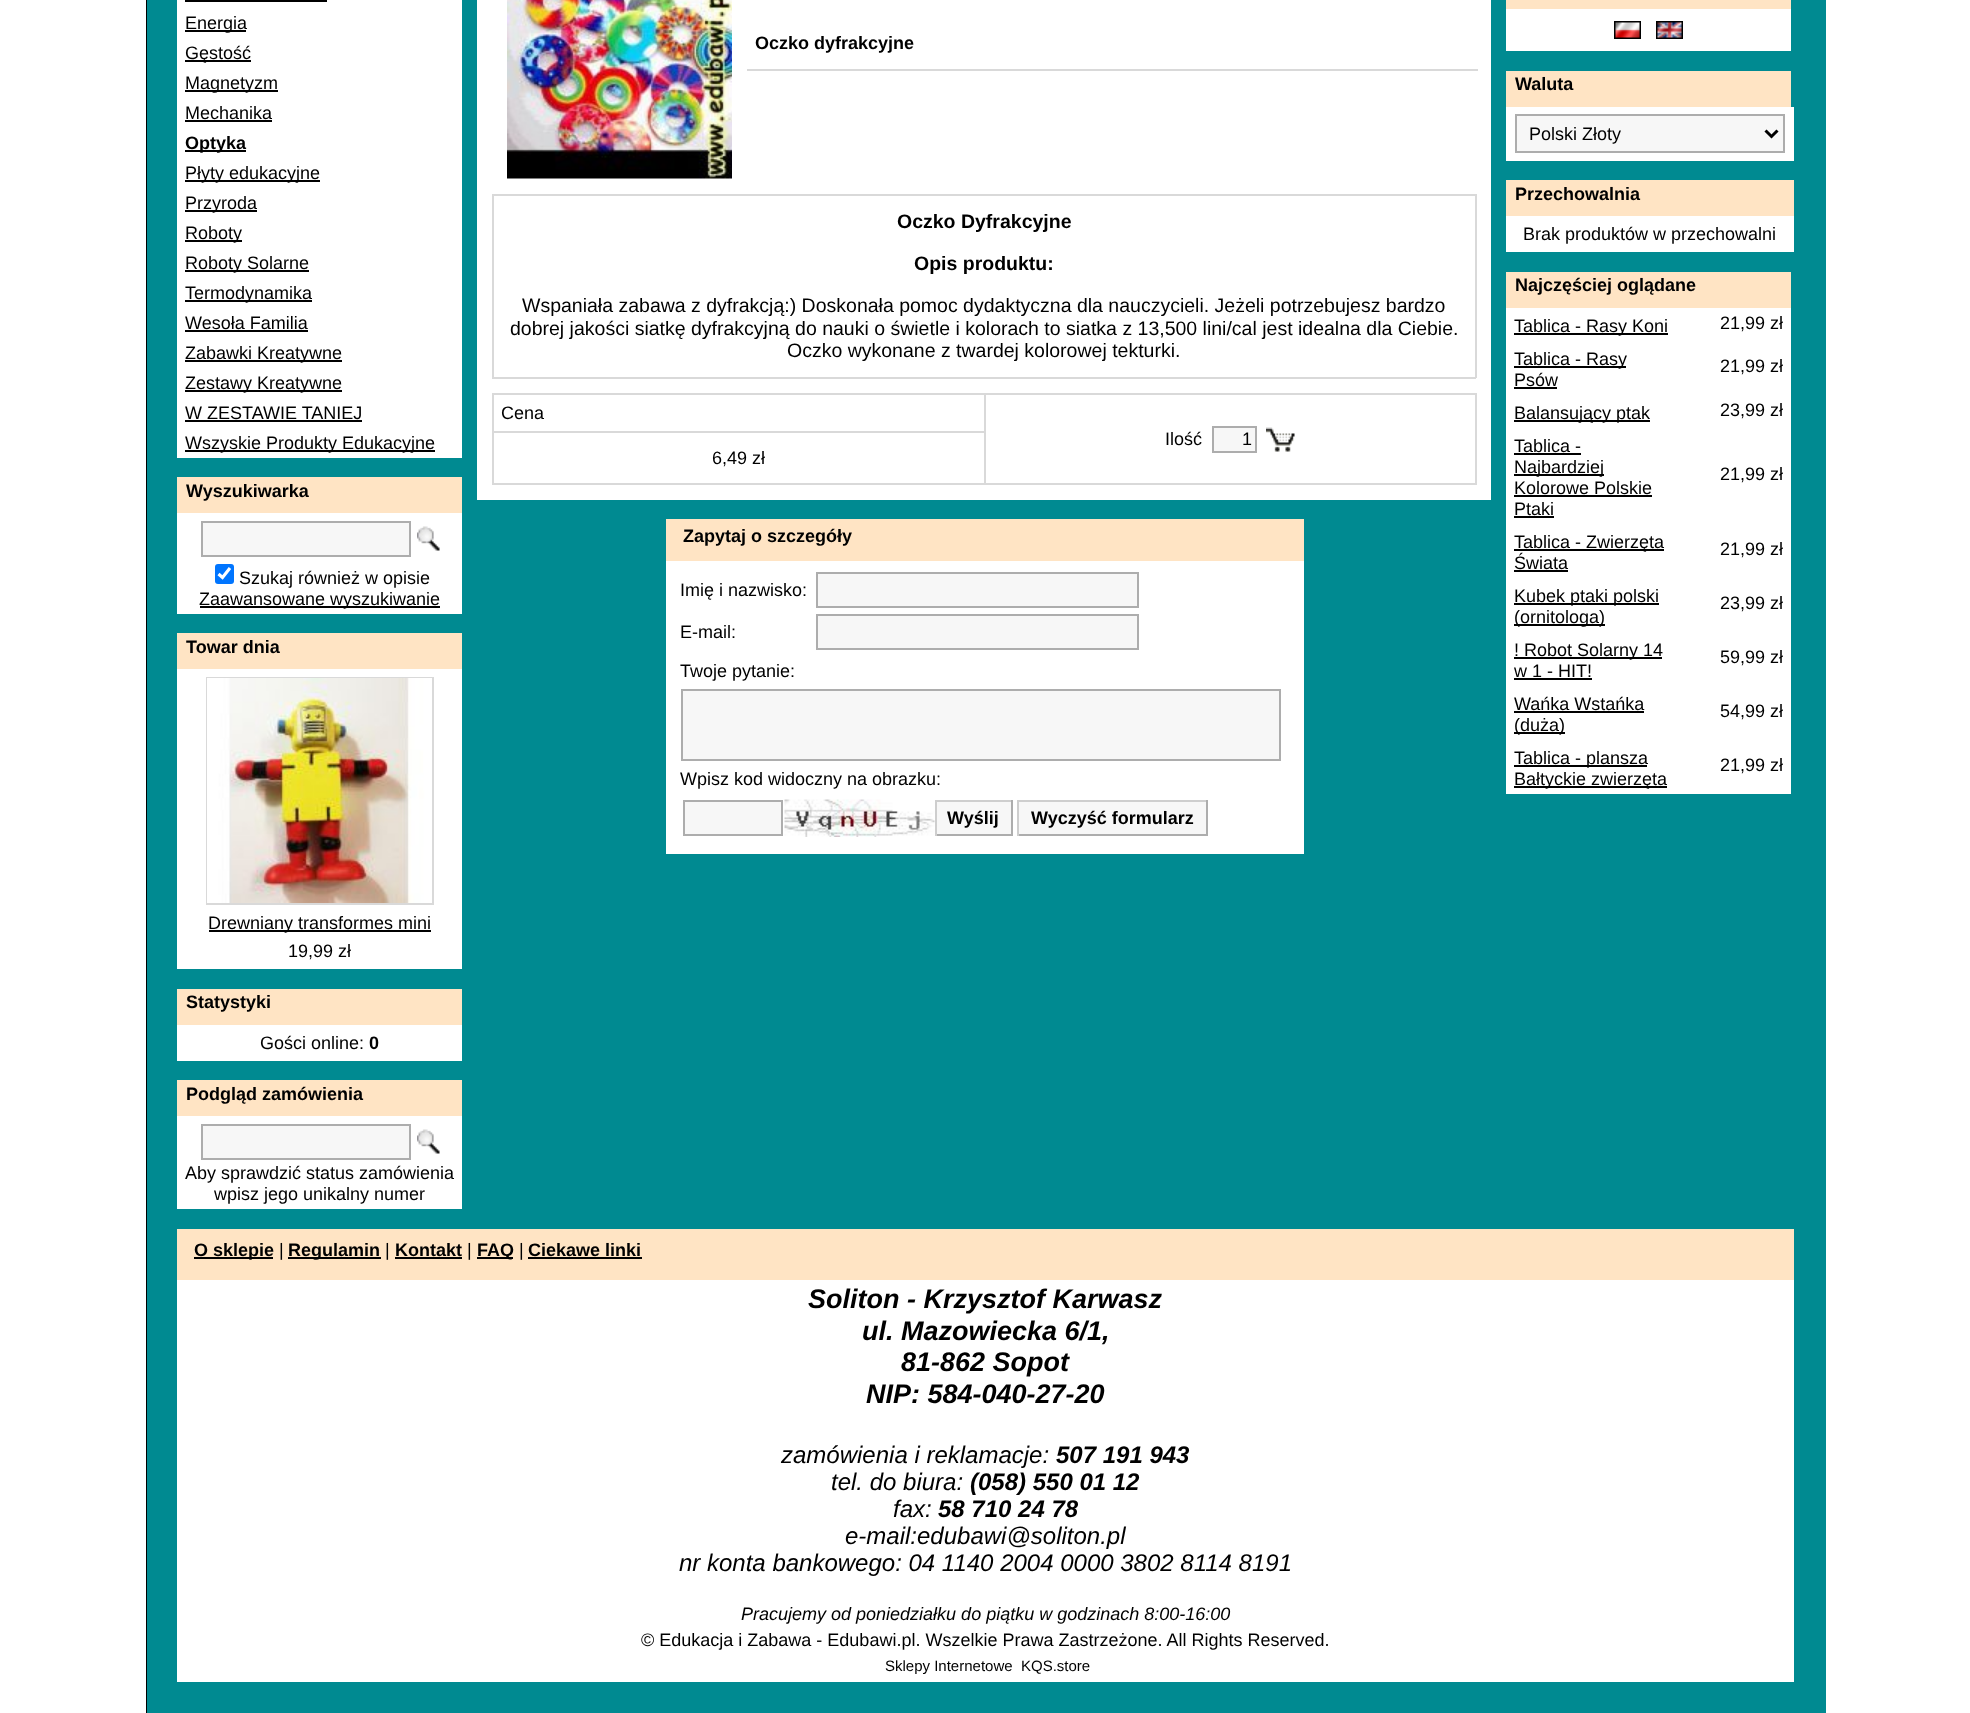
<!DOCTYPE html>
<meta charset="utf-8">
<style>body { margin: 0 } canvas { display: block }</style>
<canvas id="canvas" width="1970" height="1713"></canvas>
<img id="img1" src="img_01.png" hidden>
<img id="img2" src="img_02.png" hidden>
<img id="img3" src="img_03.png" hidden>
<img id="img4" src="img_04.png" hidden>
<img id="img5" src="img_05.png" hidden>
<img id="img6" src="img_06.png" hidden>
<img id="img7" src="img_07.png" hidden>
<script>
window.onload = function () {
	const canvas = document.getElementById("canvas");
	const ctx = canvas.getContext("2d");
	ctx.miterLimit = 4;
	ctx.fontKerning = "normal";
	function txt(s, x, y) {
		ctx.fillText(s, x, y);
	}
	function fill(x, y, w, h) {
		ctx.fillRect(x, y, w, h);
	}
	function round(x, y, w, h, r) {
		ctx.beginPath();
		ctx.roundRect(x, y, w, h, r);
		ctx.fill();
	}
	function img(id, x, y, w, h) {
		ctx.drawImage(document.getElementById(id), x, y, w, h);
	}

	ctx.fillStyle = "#FFFFFF";
	fill(0, 0, 1970, 1713);
	ctx.fillStyle = "#000000";
	fill(146, 0, 1, 1713);
	ctx.fillStyle = "#008A91";
	fill(147, 0, 1679, 1713);
	ctx.fillStyle = "#FFFFFF";
	fill(177, 0, 285, 458);
	ctx.fillStyle = "#000000";
	fill(185, 0, 142, 2);
	fill(185, 30, 61, 2);
	fill(185, 60, 66, 2);
	fill(185, 90, 93, 2);
	fill(185, 120, 87, 2);
	fill(185, 150, 61, 2);
	fill(185, 180, 135, 2);
	fill(185, 210, 72, 2);
	fill(185, 240, 57, 2);
	fill(185, 270, 124, 2);
	fill(185, 300, 127, 2);
	fill(185, 330, 123, 2);
	fill(185, 360, 157, 2);
	fill(185, 390, 157, 2);
	fill(185, 420, 177, 2);
	fill(185, 450, 250, 2);
	ctx.fillStyle = "#FFE4C4";
	fill(177, 477, 285, 36);
	ctx.fillStyle = "#FFFFFF";
	fill(177, 513, 285, 101);
	ctx.fillStyle = "#F7F7F7";
	ctx.beginPath();
	ctx.rect(202, 522, 208, 34);
	ctx.fill();
	ctx.strokeStyle = "#ADADAD";
	ctx.lineWidth = 2;
	ctx.stroke();
	img("img1", 417, 526, 23, 25);
	ctx.fillStyle = "#0075FF";
	round(215, 564, 19, 20, 3);
	ctx.beginPath();
	ctx.moveTo(218.5, 574);
	ctx.lineTo(222.5, 577.5);
	ctx.lineTo(230, 568);
	ctx.strokeStyle = "#FFFFFF";
	ctx.lineWidth = 3.1;
	ctx.stroke();
	ctx.fillStyle = "#000000";
	fill(200, 606, 240, 2);
	ctx.fillStyle = "#FFE4C4";
	fill(177, 633, 285, 36);
	ctx.fillStyle = "#FFFFFF";
	fill(177, 669, 285, 300);
	ctx.strokeStyle = "#D9D9D9";
	ctx.lineWidth = 2;
	ctx.strokeRect(207, 678, 226, 226);
	img("img2", 207, 678, 225, 225);
	ctx.fillStyle = "#000000";
	fill(209, 930, 222, 2);
	ctx.fillStyle = "#FFE4C4";
	fill(177, 989, 285, 36);
	ctx.fillStyle = "#FFFFFF";
	fill(177, 1025, 285, 36);
	ctx.fillStyle = "#FFE4C4";
	fill(177, 1080, 285, 36);
	ctx.fillStyle = "#FFFFFF";
	fill(177, 1116, 285, 93);
	ctx.fillStyle = "#F7F7F7";
	ctx.beginPath();
	ctx.rect(202, 1125, 208, 34);
	ctx.fill();
	ctx.strokeStyle = "#ADADAD";
	ctx.stroke();
	img("img1", 417, 1129, 23, 25);
	ctx.fillStyle = "#FFFFFF";
	fill(477, 0, 1014, 500);
	img("img3", 507, 0, 225, 179);
	ctx.fillStyle = "#D9D9D9";
	fill(747, 69, 731, 2);
	fill(492, 194, 984, 2);
	fill(1475, 194, 2, 184);
	fill(492, 377, 984, 2);
	fill(492, 194, 2, 184);
	fill(984, 393, 492, 2);
	fill(1475, 393, 2, 92);
	fill(492, 483, 494, 2);
	fill(984, 483, 492, 2);
	fill(492, 431, 494, 2);
	fill(984, 393, 2, 92);
	fill(492, 393, 494, 2);
	fill(492, 431, 2, 54);
	fill(492, 393, 2, 39);
	ctx.fillStyle = "#F7F7F7";
	ctx.beginPath();
	ctx.rect(1213, 427, 43, 25);
	ctx.fill();
	ctx.stroke();
	img("img4", 1266, 427, 29, 25);
	ctx.fillStyle = "#FFE4C4";
	fill(666, 519, 638, 42);
	ctx.fillStyle = "#FFFFFF";
	fill(666, 561, 638, 293);
	ctx.fillStyle = "#F7F7F7";
	ctx.beginPath();
	ctx.rect(817, 573, 321, 34);
	ctx.fill();
	ctx.stroke();
	ctx.beginPath();
	ctx.rect(817, 615, 321, 34);
	ctx.fill();
	ctx.stroke();
	ctx.beginPath();
	ctx.rect(682, 690, 598, 70);
	ctx.fill();
	ctx.stroke();
	ctx.beginPath();
	ctx.rect(684, 801, 98, 34);
	ctx.fill();
	ctx.stroke();
	img("img5", 784, 799, 151, 38);
	fill(937, 802, 74, 32);
	ctx.fillStyle = "#CECECE";
	fill(935, 800, 78, 2);
	ctx.fillStyle = "#ADADAD";
	fill(1011, 800, 2, 36);
	fill(935, 834, 78, 2);
	ctx.fillStyle = "#CECECE";
	fill(935, 800, 2, 36);
	ctx.fillStyle = "#F7F7F7";
	fill(1019, 802, 187, 32);
	ctx.fillStyle = "#CECECE";
	fill(1017, 800, 191, 2);
	ctx.fillStyle = "#ADADAD";
	fill(1206, 800, 2, 36);
	fill(1017, 834, 191, 2);
	ctx.fillStyle = "#CECECE";
	fill(1017, 800, 2, 36);
	ctx.fillStyle = "#FFE4C4";
	fill(1506, 0, 285, 9);
	ctx.fillStyle = "#FFFFFF";
	fill(1506, 9, 285, 42);
	img("img6", 1614, 21, 27, 18);
	img("img7", 1656, 21, 27, 18);
	ctx.fillStyle = "#FFE4C4";
	fill(1506, 71, 285, 36);
	ctx.fillStyle = "#FFFFFF";
	fill(1506, 107, 288, 54);
	ctx.fillStyle = "#F7F7F7";
	ctx.beginPath();
	ctx.rect(1516, 115, 268, 37);
	ctx.fill();
	ctx.stroke();
	ctx.beginPath();
	ctx.moveTo(1765.5, 130.5);
	ctx.lineTo(1771.5, 136.5);
	ctx.lineTo(1777.5, 130.5);
	ctx.strokeStyle = "#000000";
	ctx.lineWidth = 3;
	ctx.stroke();
	ctx.fillStyle = "#FFE4C4";
	fill(1506, 180, 288, 36);
	ctx.fillStyle = "#FFFFFF";
	fill(1506, 216, 288, 36);
	ctx.fillStyle = "#FFE4C4";
	fill(1506, 272, 285, 36);
	ctx.fillStyle = "#FFFFFF";
	fill(1506, 308, 285, 486);
	ctx.fillStyle = "#000000";
	fill(1514, 333, 154, 2);
	fill(1514, 366, 112, 2);
	fill(1514, 387, 43, 2);
	fill(1514, 420, 136, 2);
	fill(1514, 453, 67, 2);
	fill(1514, 474, 90, 2);
	fill(1514, 495, 138, 2);
	fill(1514, 516, 40, 2);
	fill(1514, 549, 150, 2);
	fill(1514, 570, 54, 2);
	fill(1514, 603, 145, 2);
	fill(1514, 624, 91, 2);
	fill(1514, 657, 148, 2);
	fill(1514, 678, 78, 2);
	fill(1514, 711, 130, 2);
	fill(1514, 732, 51, 2);
	fill(1514, 765, 133, 2);
	fill(1514, 786, 153, 2);
	ctx.fillStyle = "#FFE4C4";
	fill(177, 1229, 1617, 51);
	ctx.fillStyle = "#000000";
	fill(194, 1257, 79, 2);
	fill(288, 1257, 93, 2);
	fill(395, 1257, 67, 2);
	fill(477, 1257, 36, 2);
	fill(528, 1257, 114, 2);
	ctx.fillStyle = "#FFFFFF";
	fill(177, 1280, 1617, 402);
	ctx.font = "18px Liberation Sans";
	ctx.fillStyle = "#000000";
	txt("Energia", 185, 29);
	txt("Gęstość", 185, 59);
	txt("Magnetyzm", 185, 89);
	txt("Mechanika", 185, 119);
	ctx.font = "bold 18px Liberation Sans";
	txt("Optyka", 185, 149);
	ctx.font = "18px Liberation Sans";
	txt("Płyty edukacyjne", 185, 179);
	txt("Przyroda", 185, 209);
	txt("Roboty", 185, 239);
	txt("Roboty Solarne", 185, 269);
	txt("Termodynamika", 185, 299);
	txt("Wesoła Familia", 185, 329);
	txt("Zabawki Kreatywne", 185, 359);
	txt("Zestawy Kreatywne", 185, 389);
	txt("W ZESTAWIE TANIEJ", 185, 419);
	txt("Wszyskie Produkty Edukacyjne", 185, 449);
	ctx.font = "bold 18px Liberation Sans";
	txt("Wyszukiwarka", 186, 497);
	ctx.font = "18px Liberation Sans";
	txt("Szukaj również w opisie", 239, 584);
	txt("Zaawansowane wyszukiwanie", 199, 605);
	ctx.font = "bold 18px Liberation Sans";
	txt("Towar dnia", 186, 653);
	ctx.font = "18px Liberation Sans";
	txt("Drewniany transformes mini", 208, 929);
	txt("19,99 zł", 288, 957);
	ctx.font = "bold 18px Liberation Sans";
	txt("Statystyki", 186, 1008);
	ctx.font = "18px Liberation Sans";
	txt("Gości online:", 260, 1049);
	ctx.font = "bold 18px Liberation Sans";
	txt("0", 369, 1049);
	txt("Podgląd zamówienia", 186, 1100);
	ctx.font = "18px Liberation Sans";
	txt("Aby sprawdzić status zamówienia", 185, 1179);
	txt("wpisz jego unikalny numer", 214, 1200);
	ctx.font = "bold 18px Liberation Sans";
	txt("Oczko dyfrakcyjne", 755, 49);
	ctx.font = "bold 19.5px Liberation Sans";
	txt("Oczko Dyfrakcyjne", 897, 228);
	txt("Opis produktu:", 914, 270);
	ctx.font = "19.5px Liberation Sans";
	txt("Wspaniała zabawa z dyfrakcją:) Doskonała pomoc dydaktyczna dla nauczycieli. Jeżeli potrzebujesz bardzo", 522, 312);
	txt("dobrej jakości siatkę dyfrakcyjną do nauki o świetle i kolorach to siatka z 13,500 lini/cal jest idealna dla Ciebie.", 510, 335);
	txt("Oczko wykonane z twardej kolorowej tekturki.", 787, 357);
	ctx.font = "18px Liberation Sans";
	txt("Cena", 501, 419);
	txt("Ilość", 1165, 445);
	txt("1", 1242, 445);
	txt("6,49 zł", 712, 464);
	ctx.font = "bold 18px Liberation Sans";
	txt("Zapytaj o szczegóły", 683, 542);
	ctx.font = "18px Liberation Sans";
	txt("Imię i nazwisko:", 680, 596);
	txt("E-mail:", 680, 638);
	txt("Twoje pytanie:", 680, 677);
	txt("Wpisz kod widoczny na obrazku:", 680, 785);
	ctx.font = "bold 18px Liberation Sans";
	txt("Wyślij", 947, 824);
	txt("Wyczyść formularz", 1031, 824);
	txt("Waluta", 1515, 90);
	ctx.font = "18px Liberation Sans";
	txt("Polski Złoty", 1529, 140);
	ctx.font = "bold 18px Liberation Sans";
	txt("Przechowalnia", 1515, 200);
	ctx.font = "18px Liberation Sans";
	txt("Brak produktów w przechowalni", 1523, 240);
	ctx.font = "bold 18px Liberation Sans";
	txt("Najczęściej oglądane", 1515, 291);
	ctx.font = "18px Liberation Sans";
	txt("Tablica - Rasy Koni", 1514, 332);
	txt("21,99 zł", 1720, 329);
	txt("Tablica - Rasy", 1514, 365);
	txt("Psów", 1514, 386);
	txt("21,99 zł", 1720, 372);
	txt("Balansujący ptak", 1514, 419);
	txt("23,99 zł", 1720, 416);
	txt("Tablica -", 1514, 452);
	txt("Najbardziej", 1514, 473);
	txt("Kolorowe Polskie", 1514, 494);
	txt("Ptaki", 1514, 515);
	txt("21,99 zł", 1720, 480);
	txt("Tablica - Zwierzęta", 1514, 548);
	txt("Świata", 1514, 569);
	txt("21,99 zł", 1720, 555);
	txt("Kubek ptaki polski", 1514, 602);
	txt("(ornitologa)", 1514, 623);
	txt("23,99 zł", 1720, 609);
	txt("! Robot Solarny 14", 1514, 656);
	txt("w 1 - HIT!", 1514, 677);
	txt("59,99 zł", 1720, 663);
	txt("Wańka Wstańka", 1514, 710);
	txt("(duża)", 1514, 731);
	txt("54,99 zł", 1720, 717);
	txt("Tablica - plansza", 1514, 764);
	txt("Bałtyckie zwierzęta", 1514, 785);
	txt("21,99 zł", 1720, 771);
	ctx.font = "bold 18px Liberation Sans";
	txt("O sklepie", 194, 1256);
	ctx.font = "18px Liberation Sans";
	txt("|", 279, 1256);
	ctx.font = "bold 18px Liberation Sans";
	txt("Regulamin", 288, 1256);
	ctx.font = "18px Liberation Sans";
	txt("|", 385, 1256);
	ctx.font = "bold 18px Liberation Sans";
	txt("Kontakt", 395, 1256);
	ctx.font = "18px Liberation Sans";
	txt("|", 467, 1256);
	ctx.font = "bold 18px Liberation Sans";
	txt("FAQ", 477, 1256);
	ctx.font = "18px Liberation Sans";
	txt("|", 519, 1256);
	ctx.font = "bold 18px Liberation Sans";
	txt("Ciekawe linki", 528, 1256);
	ctx.font = "italic bold 27px Liberation Sans";
	txt("Soliton - Krzysztof Karwasz", 808, 1308);
	txt("ul. Mazowiecka 6/1,", 862, 1340);
	txt("81-862 Sopot", 901, 1371);
	txt("NIP: 584-040-27-20", 866, 1403);
	ctx.font = "italic 24px Liberation Sans";
	txt("zamówienia i reklamacje:", 781, 1463);
	ctx.font = "italic bold 24px Liberation Sans";
	txt("507 191 943", 1056, 1463);
	ctx.font = "italic 24px Liberation Sans";
	txt("tel. do biura:", 831, 1490);
	ctx.font = "italic bold 24px Liberation Sans";
	txt("(058) 550 01 12", 970, 1490);
	ctx.font = "italic 24px Liberation Sans";
	txt("fax:", 893, 1517);
	ctx.font = "italic bold 24px Liberation Sans";
	txt("58 710 24 78", 938, 1517);
	ctx.font = "italic 24px Liberation Sans";
	txt("e-mail:edubawi@soliton.pl", 845, 1544);
	txt("nr konta bankowego: 04 1140 2004 0000 3802 8114 8191", 679, 1571);
	ctx.font = "italic 18px Liberation Sans";
	txt("Pracujemy od poniedziałku do piątku w godzinach 8:00-16:00", 741, 1620);
	ctx.font = "18px Liberation Sans";
	txt("© Edukacja i Zabawa - Edubawi.pl. Wszelkie Prawa Zastrzeżone. All Rights Reserved.", 641, 1646);
	ctx.font = "15px Liberation Sans";
	txt("Sklepy Internetowe", 885, 1671);
	txt("KQS.store", 1021, 1671);
};
</script>
